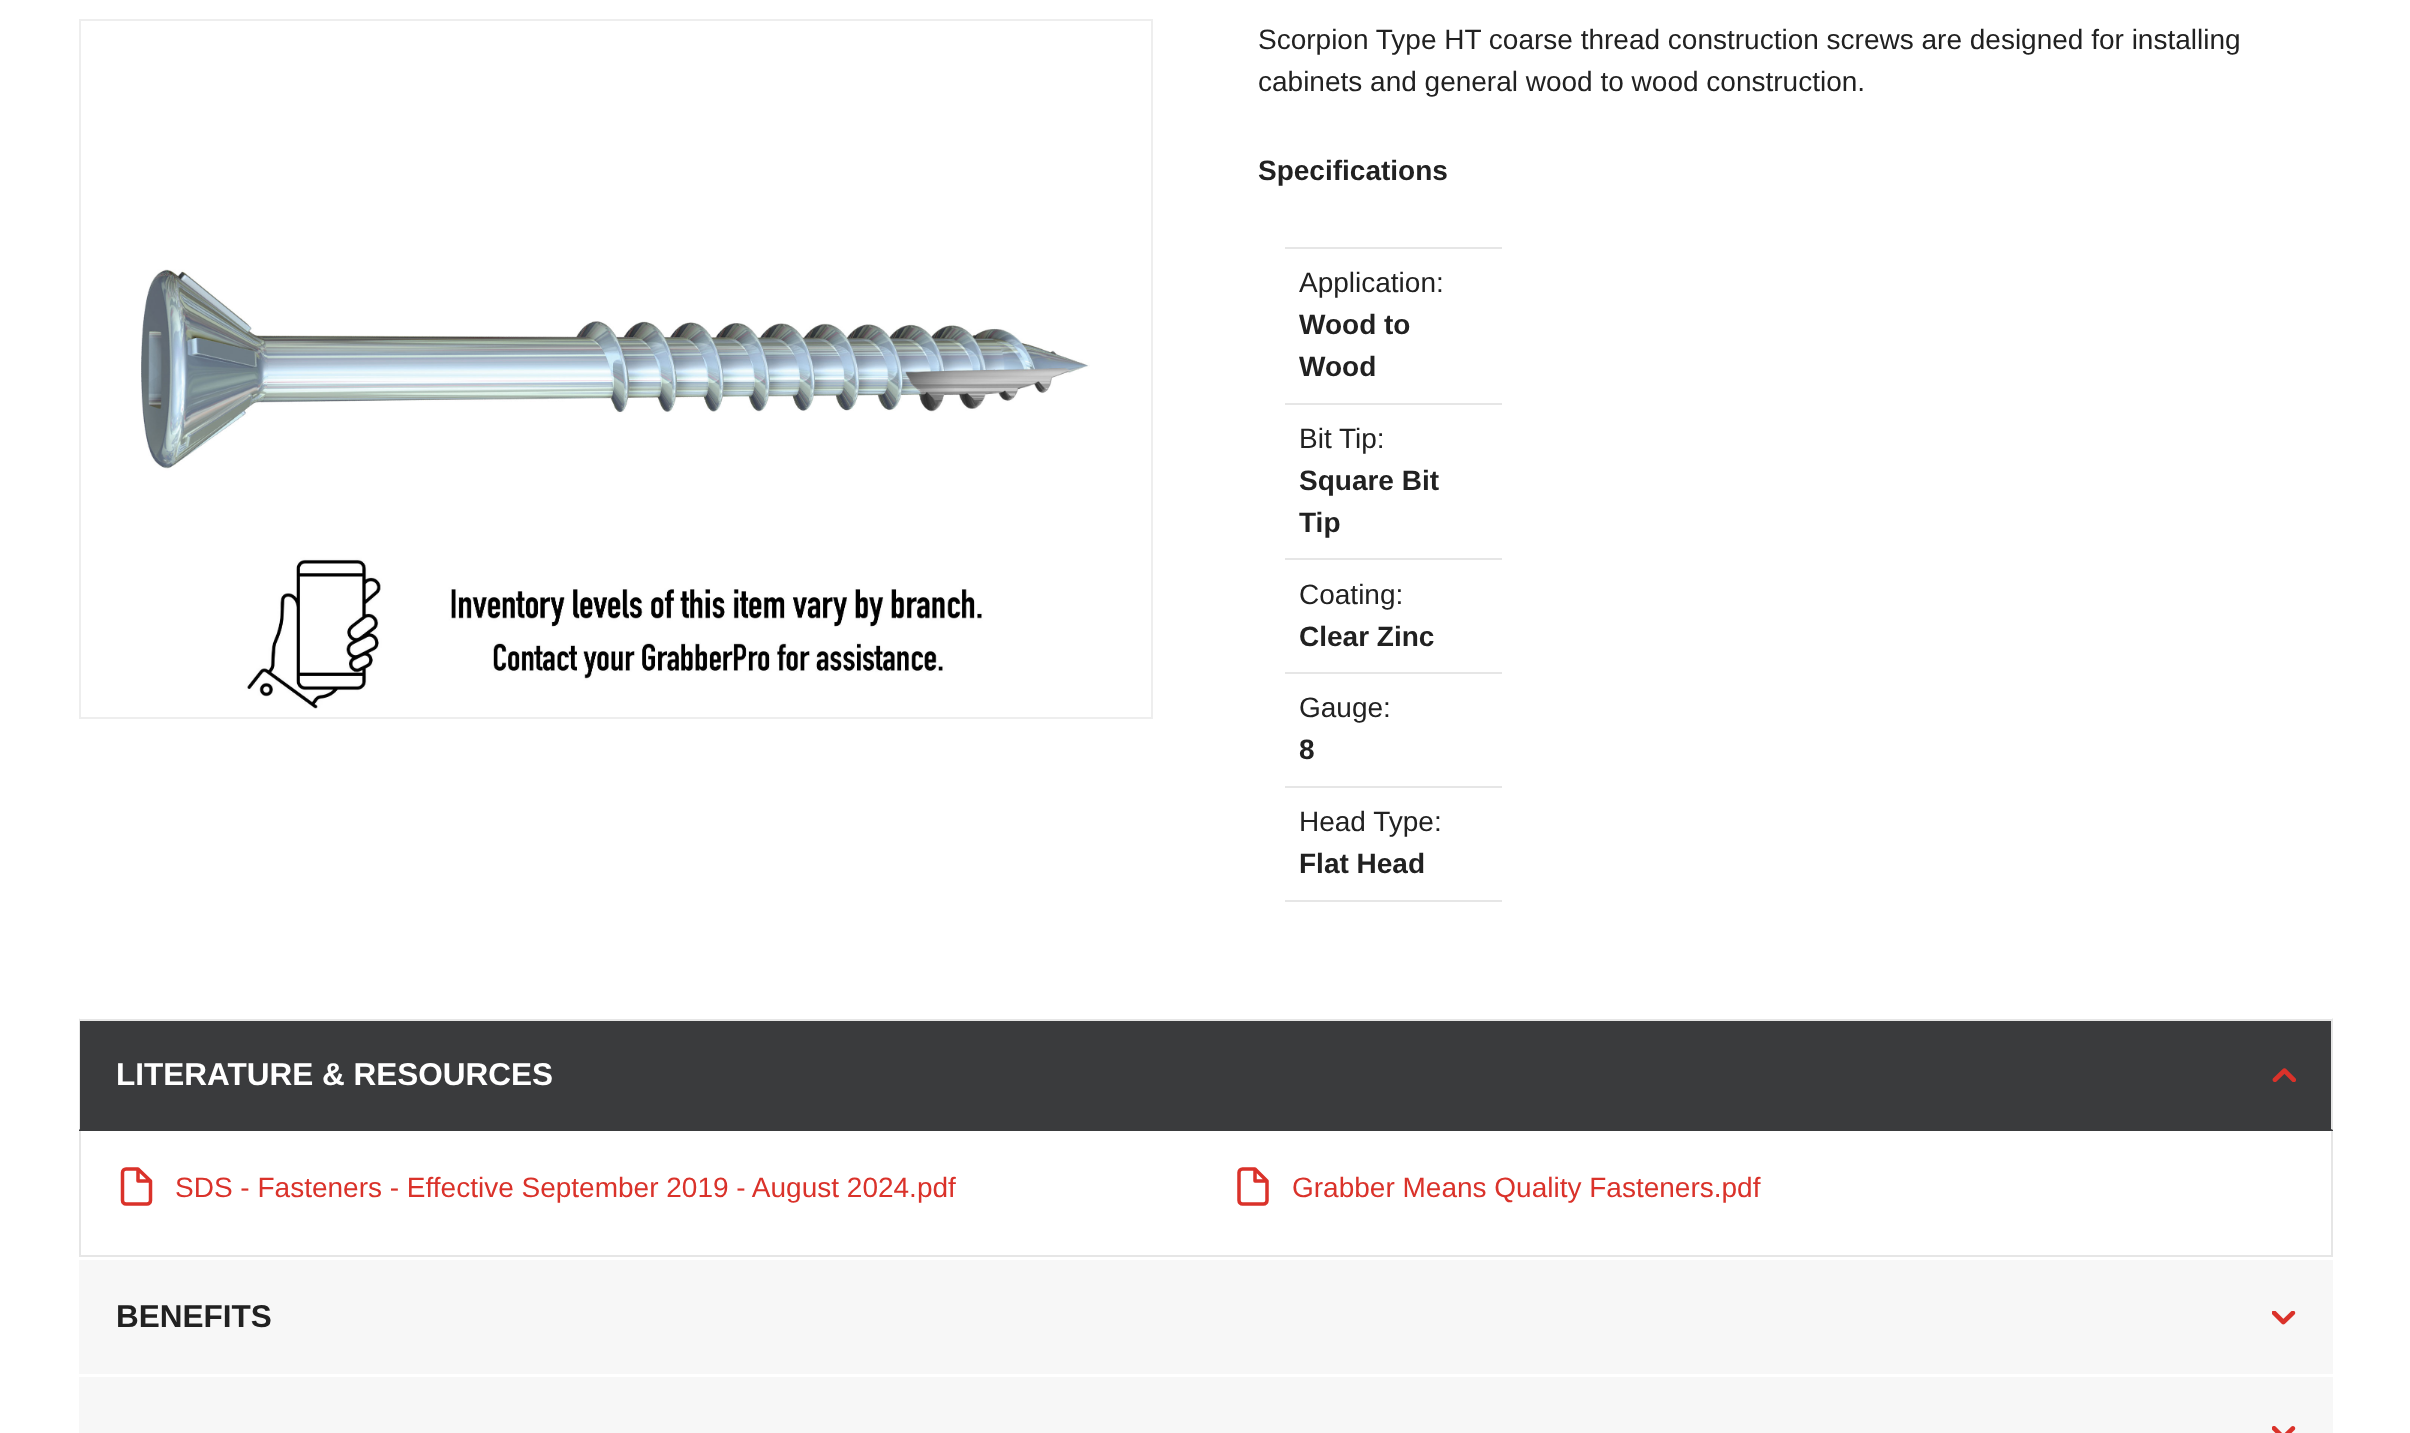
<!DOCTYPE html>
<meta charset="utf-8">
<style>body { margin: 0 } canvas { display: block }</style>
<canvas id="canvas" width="2410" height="1433"></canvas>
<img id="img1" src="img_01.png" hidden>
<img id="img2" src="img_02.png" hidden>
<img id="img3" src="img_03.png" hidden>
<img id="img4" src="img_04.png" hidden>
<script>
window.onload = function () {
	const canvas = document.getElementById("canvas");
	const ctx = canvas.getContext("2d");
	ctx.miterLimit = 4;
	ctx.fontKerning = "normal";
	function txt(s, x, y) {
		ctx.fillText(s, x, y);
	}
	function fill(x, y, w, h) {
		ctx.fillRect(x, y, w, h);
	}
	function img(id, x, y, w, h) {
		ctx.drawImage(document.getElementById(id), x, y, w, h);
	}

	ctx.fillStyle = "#FFFFFF";
	fill(0, 0, 2410, 1433);
	ctx.strokeStyle = "#EEEEEE";
	ctx.lineWidth = 2;
	ctx.strokeRect(80, 20, 1072, 698);
	img("img1", 141, 269, 949, 440);
	ctx.fillStyle = "#E6E6E6";
	fill(1285, 247, 217, 2);
	fill(1285, 403, 217, 2);
	fill(1285, 558, 217, 2);
	fill(1285, 672, 217, 2);
	fill(1285, 786, 217, 2);
	fill(1285, 900, 217, 2);
	ctx.fillStyle = "#3A3B3D";
	fill(79, 1021, 2254, 110);
	ctx.fillStyle = "#E6E6E6";
	fill(79, 1019, 2254, 2);
	ctx.beginPath();
	ctx.moveTo(2333, 1018);
	ctx.lineTo(2333, 1130);
	ctx.lineTo(2331, 1129);
	ctx.lineTo(2331, 1020);
	ctx.closePath();
	ctx.fill();
	ctx.beginPath();
	ctx.moveTo(79, 1130);
	ctx.lineTo(79, 1018);
	ctx.lineTo(80, 1020);
	ctx.lineTo(80, 1129);
	ctx.closePath();
	ctx.fill();
	img("img2", 2272, 1068, 24, 14);
	fill(2331, 1131, 2, 126);
	fill(79, 1255, 2254, 2);
	fill(79, 1131, 2, 126);
	ctx.beginPath();
	ctx.moveTo(138, 1169);
	ctx.lineTo(126, 1169);
	ctx.bezierCurveTo(124, 1169, 122.5, 1170.5, 122.5, 1172.5);
	ctx.lineTo(122.5, 1200.5);
	ctx.bezierCurveTo(122.5, 1202.5, 124, 1204, 126, 1204);
	ctx.lineTo(147, 1204);
	ctx.bezierCurveTo(149, 1204, 150.5, 1202.5, 150.5, 1200.5);
	ctx.lineTo(150.5, 1181);
	ctx.closePath();
	ctx.moveTo(138, 1169);
	ctx.lineTo(138, 1181);
	ctx.lineTo(150.5, 1181);
	ctx.strokeStyle = "#DA322A";
	ctx.lineWidth = 3.5;
	ctx.lineCap = "round";
	ctx.lineJoin = "round";
	ctx.stroke();
	ctx.beginPath();
	ctx.moveTo(1255, 1169);
	ctx.lineTo(1242.5, 1169);
	ctx.bezierCurveTo(1240.5, 1169, 1239, 1170.5, 1239, 1172.5);
	ctx.lineTo(1239, 1200.5);
	ctx.bezierCurveTo(1239, 1202.5, 1240.5, 1204, 1242.5, 1204);
	ctx.lineTo(1263.5, 1204);
	ctx.bezierCurveTo(1265.5, 1204, 1267, 1202.5, 1267, 1200.5);
	ctx.lineTo(1267, 1181);
	ctx.closePath();
	ctx.moveTo(1255, 1169);
	ctx.lineTo(1255, 1181);
	ctx.lineTo(1267, 1181);
	ctx.stroke();
	ctx.fillStyle = "#F7F7F7";
	fill(79, 1260, 2254, 114);
	img("img3", 2272, 1311, 24, 14);
	fill(79, 1377, 2254, 56);
	img("img4", 2272, 1426, 24, 7);
	ctx.font = "28px Liberation Sans";
	ctx.fillStyle = "#212121";
	txt("Scorpion Type HT coarse thread construction screws are designed for installing", 1258, 49);
	txt("cabinets and general wood to wood construction.", 1258, 91);
	ctx.font = "bold 28px Liberation Sans";
	txt("Specifications", 1258, 180);
	ctx.font = "28px Liberation Sans";
	txt("Application:", 1299, 292);
	ctx.font = "bold 28px Liberation Sans";
	txt("Wood to", 1299, 334);
	txt("Wood", 1299, 376);
	ctx.font = "28px Liberation Sans";
	txt("Bit Tip:", 1299, 448);
	ctx.font = "bold 28px Liberation Sans";
	txt("Square Bit", 1299, 490);
	txt("Tip", 1299, 532);
	ctx.font = "28px Liberation Sans";
	txt("Coating:", 1299, 604);
	ctx.font = "bold 28px Liberation Sans";
	txt("Clear Zinc", 1299, 646);
	ctx.font = "28px Liberation Sans";
	txt("Gauge:", 1299, 717);
	ctx.font = "bold 28px Liberation Sans";
	txt("8", 1299, 759);
	ctx.font = "28px Liberation Sans";
	txt("Head Type:", 1299, 831);
	ctx.font = "bold 28px Liberation Sans";
	txt("Flat Head", 1299, 873);
	ctx.font = "bold 31.5px Liberation Sans";
	ctx.fillStyle = "#FFFFFF";
	txt("LITERATURE & RESOURCES", 116, 1085);
	ctx.font = "28px Liberation Sans";
	ctx.fillStyle = "#DA322A";
	txt("SDS - Fasteners - Effective September 2019 - August 2024.pdf", 175, 1197);
	txt("Grabber Means Quality Fasteners.pdf", 1292, 1197);
	ctx.font = "bold 31.5px Liberation Sans";
	ctx.fillStyle = "#212121";
	txt("BENEFITS", 116, 1327);
};
</script>
